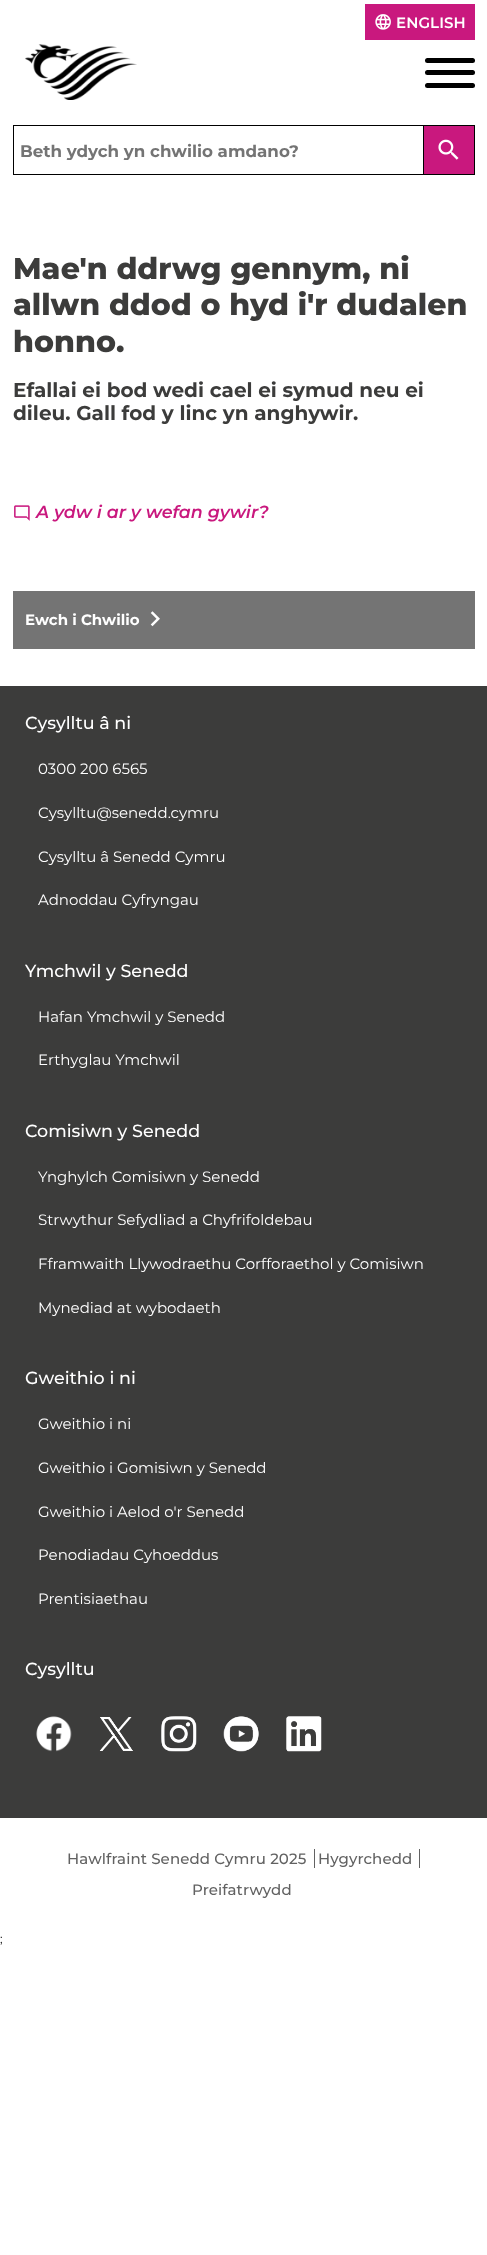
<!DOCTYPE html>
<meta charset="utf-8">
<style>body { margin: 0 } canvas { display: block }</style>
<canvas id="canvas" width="487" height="2255"></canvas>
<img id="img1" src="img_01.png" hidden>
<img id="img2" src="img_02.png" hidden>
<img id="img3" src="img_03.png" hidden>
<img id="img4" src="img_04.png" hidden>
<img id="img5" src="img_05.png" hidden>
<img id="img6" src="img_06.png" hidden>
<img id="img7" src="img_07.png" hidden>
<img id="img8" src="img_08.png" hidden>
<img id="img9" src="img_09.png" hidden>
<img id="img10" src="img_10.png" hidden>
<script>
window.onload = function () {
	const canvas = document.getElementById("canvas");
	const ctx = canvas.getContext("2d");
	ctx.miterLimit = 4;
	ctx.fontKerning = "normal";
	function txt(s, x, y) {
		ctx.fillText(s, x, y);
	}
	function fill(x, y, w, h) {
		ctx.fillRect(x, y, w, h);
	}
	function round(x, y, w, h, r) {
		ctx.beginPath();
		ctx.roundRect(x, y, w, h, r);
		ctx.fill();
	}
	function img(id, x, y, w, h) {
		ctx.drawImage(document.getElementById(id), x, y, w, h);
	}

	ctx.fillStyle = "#FFFFFF";
	fill(0, 0, 487, 2255);
	ctx.fillStyle = "#C9187E";
	fill(365, 4, 110, 36);
	img("img1", 375, 14, 16, 16);
	img("img2", 25, 44, 112, 56);
	ctx.fillStyle = "#000000";
	round(425, 58, 50, 5, 2.5);
	round(425, 70, 50, 5, 2.5);
	round(425, 83, 50, 5, 2.5);
	ctx.strokeStyle = "#000000";
	ctx.strokeRect(13.5, 125.5, 461, 49);
	ctx.fillStyle = "#C9187E";
	fill(424, 126, 50, 48);
	img("img3", 438, 139, 21, 21);
	ctx.strokeRect(423.5, 125.5, 51, 49);
	img("img4", 14, 505, 16, 16);
	ctx.fillStyle = "#747474";
	fill(13, 591, 462, 58);
	img("img5", 150, 611, 10, 16);
	ctx.fillStyle = "#3C3C3B";
	fill(0, 686, 487, 1132);
	img("img6", 36, 1716, 36, 36);
	img("img7", 99, 1717, 34, 34);
	img("img8", 161, 1716, 36, 36);
	img("img9", 223, 1716, 36, 36);
	img("img10", 286, 1716, 36, 36);
	ctx.fillStyle = "#626262";
	fill(314, 1849, 1, 19);
	fill(419, 1849, 1, 19);
	ctx.letterSpacing = "0.1px";
	ctx.font = "600 15px Montserrat";
	ctx.fillStyle = "#FFFFFF";
	txt("ENGLISH", 396, 28);
	ctx.save();
	ctx.beginPath();
	ctx.rect(20, 140, 391, 20);
	ctx.clip();
	ctx.letterSpacing = "0px";
	ctx.font = "bold 16.7px Montserrat";
	ctx.fillStyle = "#747474";
	txt("Beth ydych yn chwilio amdano?", 20, 157);
	ctx.restore();
	ctx.letterSpacing = "0px";
	ctx.font = "800 30px Montserrat";
	ctx.fillStyle = "#3C3C3B";
	txt("Mae'n ddrwg gennym, ni", 13, 279);
	txt("allwn ddod o hyd i'r dudalen", 13, 315);
	txt("honno.", 13, 352);
	ctx.font = "bold 20px Montserrat";
	txt("Efallai ei bod wedi cael ei symud neu ei", 13, 397);
	txt("dileu. Gall fod y linc yn anghywir.", 13, 420);
	ctx.font = "italic 600 17.5px Montserrat";
	ctx.fillStyle = "#C9187E";
	txt("A ydw i ar y wefan gywir?", 36, 518);
	ctx.font = "bold 15px Montserrat";
	ctx.fillStyle = "#FFFFFF";
	txt("Ewch i Chwilio", 25, 625);
	ctx.font = "500 17.5px Montserrat";
	txt("Cysylltu â ni", 25, 729);
	ctx.font = "15px Montserrat";
	txt("0300 200 6565", 38, 774);
	txt("Cysylltu@senedd.cymru", 38, 818);
	txt("Cysylltu â Senedd Cymru", 38, 862);
	txt("Adnoddau Cyfryngau", 38, 905);
	ctx.font = "500 17.5px Montserrat";
	txt("Ymchwil y Senedd", 25, 977);
	ctx.font = "15px Montserrat";
	txt("Hafan Ymchwil y Senedd", 38, 1022);
	txt("Erthyglau Ymchwil", 38, 1065);
	ctx.font = "500 17.5px Montserrat";
	txt("Comisiwn y Senedd", 25, 1137);
	ctx.font = "15px Montserrat";
	txt("Ynghylch Comisiwn y Senedd", 38, 1182);
	txt("Strwythur Sefydliad a Chyfrifoldebau", 38, 1225);
	txt("Fframwaith Llywodraethu Corfforaethol y Comisiwn", 38, 1269);
	txt("Mynediad at wybodaeth", 38, 1313);
	ctx.font = "500 17.5px Montserrat";
	txt("Gweithio i ni", 25, 1384);
	ctx.font = "15px Montserrat";
	txt("Gweithio i ni", 38, 1429);
	txt("Gweithio i Gomisiwn y Senedd", 38, 1473);
	txt("Gweithio i Aelod o'r Senedd", 38, 1517);
	txt("Penodiadau Cyhoeddus", 38, 1560);
	txt("Prentisiaethau", 38, 1604);
	ctx.font = "500 17.5px Montserrat";
	txt("Cysylltu", 25, 1675);
	ctx.letterSpacing = "0.1px";
	ctx.font = "500 15px Montserrat";
	ctx.fillStyle = "#626262";
	txt("Hawlfraint Senedd Cymru 2025", 67, 1864);
	txt("Hygyrchedd", 318, 1864);
	txt("Preifatrwydd", 192, 1895);
	ctx.letterSpacing = "0px";
	ctx.font = "12px Montserrat";
	ctx.fillStyle = "#000000";
	txt(";", 0, 1943);
};
</script>
